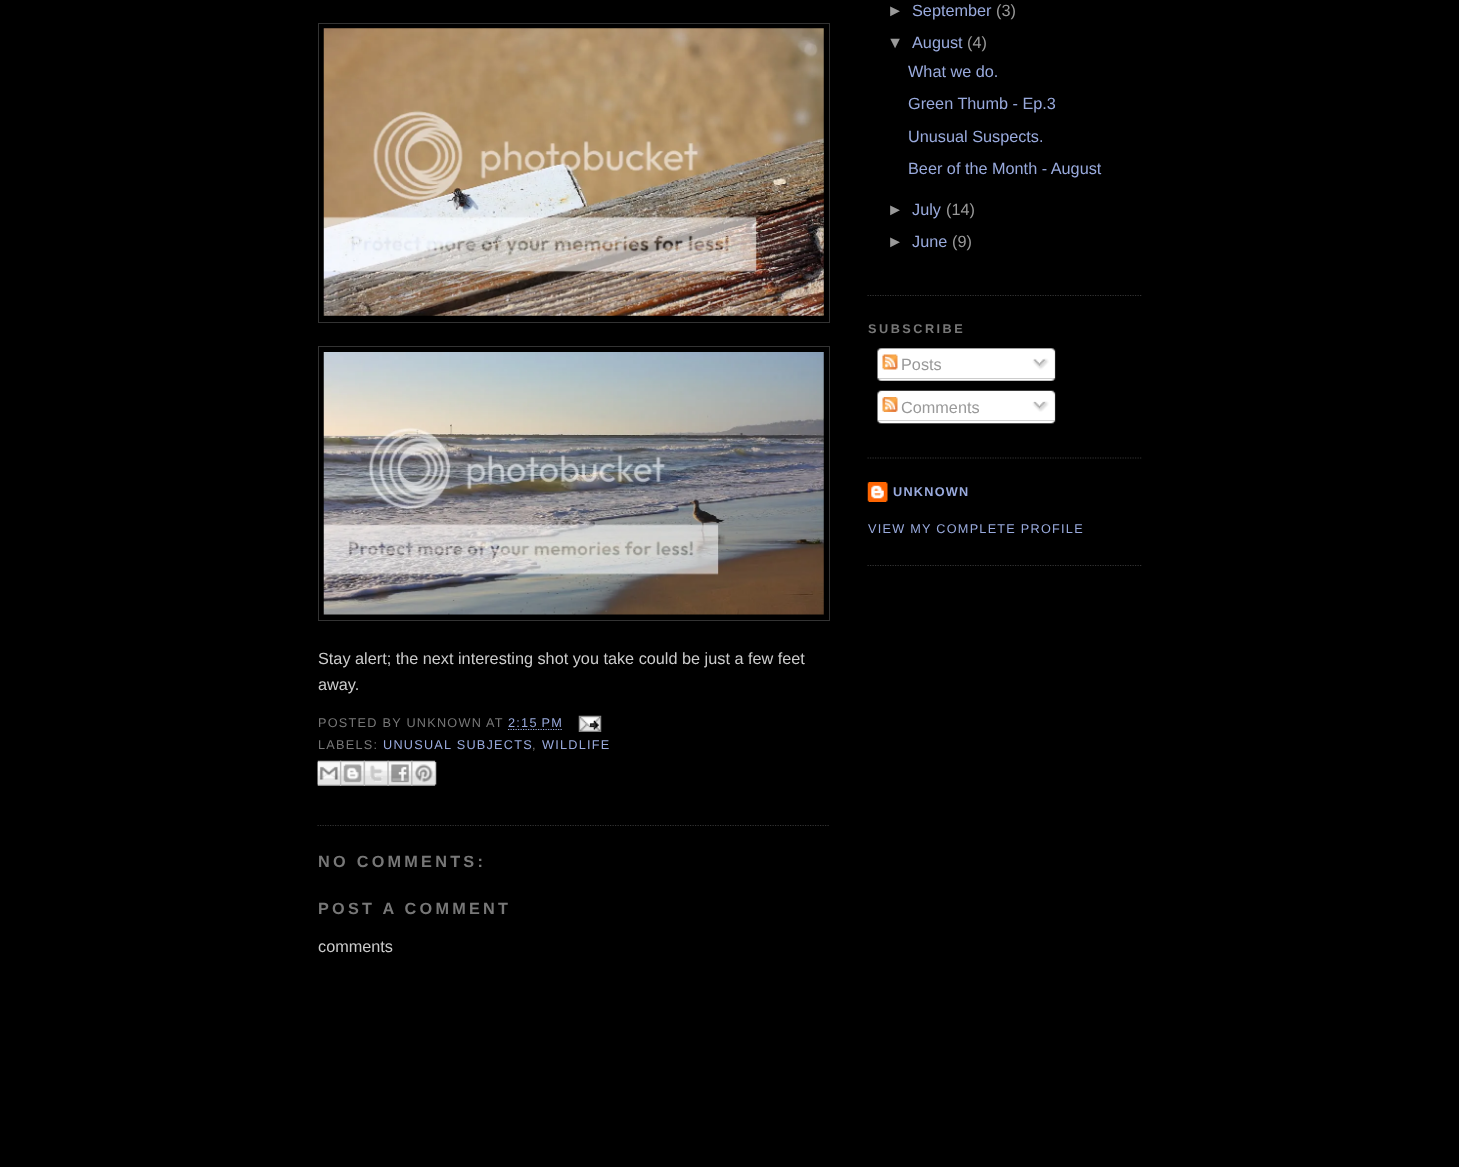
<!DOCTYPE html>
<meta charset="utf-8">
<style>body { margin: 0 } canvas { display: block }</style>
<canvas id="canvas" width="1459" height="1167"></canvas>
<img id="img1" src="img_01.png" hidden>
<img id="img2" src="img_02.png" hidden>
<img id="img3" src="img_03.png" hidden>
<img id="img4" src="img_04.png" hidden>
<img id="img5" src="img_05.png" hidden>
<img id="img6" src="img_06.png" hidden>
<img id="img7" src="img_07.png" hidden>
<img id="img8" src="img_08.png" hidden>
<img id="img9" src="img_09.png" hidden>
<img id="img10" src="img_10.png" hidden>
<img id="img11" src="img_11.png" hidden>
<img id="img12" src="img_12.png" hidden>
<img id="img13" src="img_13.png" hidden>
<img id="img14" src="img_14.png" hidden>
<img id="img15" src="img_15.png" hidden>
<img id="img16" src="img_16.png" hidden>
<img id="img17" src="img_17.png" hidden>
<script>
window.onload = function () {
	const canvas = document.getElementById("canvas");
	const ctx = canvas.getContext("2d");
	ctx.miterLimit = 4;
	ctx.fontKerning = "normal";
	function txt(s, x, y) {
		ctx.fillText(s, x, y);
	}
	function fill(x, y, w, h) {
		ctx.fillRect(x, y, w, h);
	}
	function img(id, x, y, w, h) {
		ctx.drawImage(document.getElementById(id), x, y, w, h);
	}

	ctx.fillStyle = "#000000";
	fill(0, 0, 1459, 1167);
	ctx.beginPath();
	ctx.moveTo(867.5, 295.5);
	ctx.lineTo(1142.5, 295.5);
	ctx.strokeStyle = "#333333";
	ctx.lineWidth = 1.2;
	ctx.setLineDash([1.25, 1.25]);
	ctx.stroke();
	ctx.beginPath();
	ctx.moveTo(867.5, 458);
	ctx.lineTo(1142.5, 458);
	ctx.stroke();
	img("img1", 877, 348, 179, 31);
	img("img2", 882, 354, 16, 16);
	img("img3", 1032, 358, 17, 12);
	img("img4", 877, 378, 179, 3);
	img("img5", 877, 390, 179, 31);
	img("img6", 882, 397, 16, 15);
	img("img7", 1032, 401, 17, 11);
	img("img8", 877, 420, 179, 4);
	ctx.beginPath();
	ctx.moveTo(867.5, 565.5);
	ctx.lineTo(1142.5, 565.5);
	ctx.stroke();
	img("img9", 867, 482, 21, 20);
	ctx.beginPath();
	ctx.moveTo(317.5, 825.5);
	ctx.lineTo(830, 825.5);
	ctx.stroke();
	ctx.lineWidth = 1;
	ctx.setLineDash([]);
	ctx.strokeRect(318.5, 23.5, 511, 299);
	img("img10", 323, 28, 501, 288);
	ctx.strokeRect(318.5, 346.5, 511, 274);
	img("img11", 323, 352, 501, 263);
	ctx.beginPath();
	ctx.moveTo(508, 729.5);
	ctx.lineTo(563, 729.5);
	ctx.strokeStyle = "#99AADD";
	ctx.lineWidth = 1.2;
	ctx.setLineDash([1.25, 1.25]);
	ctx.stroke();
	img("img12", 578, 715, 24, 17);
	img("img13", 317, 760, 25, 26);
	img("img14", 340, 760, 25, 26);
	img("img15", 363, 760, 26, 26);
	img("img16", 387, 760, 26, 26);
	img("img17", 411, 760, 26, 26);
	ctx.font = "16.25px Liberation Sans";
	ctx.fillStyle = "#999999";
	txt("►", 887, 16);
	ctx.fillStyle = "#99AADD";
	txt("September", 912, 16);
	ctx.fillStyle = "#999999";
	txt("(3)", 996, 16);
	txt("▼", 887, 48);
	ctx.fillStyle = "#99AADD";
	txt("August", 912, 48);
	ctx.fillStyle = "#999999";
	txt("(4)", 967, 48);
	ctx.fillStyle = "#99AADD";
	txt("What we do.", 908, 77);
	txt("Green Thumb - Ep.3", 908, 109);
	txt("Unusual Suspects.", 908, 142);
	txt("Beer of the Month - August", 908, 174);
	ctx.fillStyle = "#999999";
	txt("►", 887, 215);
	ctx.fillStyle = "#99AADD";
	txt("July", 912, 215);
	ctx.fillStyle = "#999999";
	txt("(14)", 946, 215);
	txt("►", 887, 247);
	ctx.fillStyle = "#99AADD";
	txt("June", 912, 247);
	ctx.fillStyle = "#999999";
	txt("(9)", 952, 247);
	ctx.letterSpacing = "2.5px";
	ctx.font = "bold 12.7px Liberation Sans";
	ctx.fillStyle = "#777777";
	txt("SUBSCRIBE", 868, 333);
	ctx.letterSpacing = "0px";
	ctx.font = "16.25px Liberation Sans";
	ctx.fillStyle = "#999999";
	txt("Posts", 901, 370);
	txt("Comments", 901, 413);
	ctx.letterSpacing = "1.25px";
	ctx.font = "bold 12.7px Liberation Sans";
	ctx.fillStyle = "#99AADD";
	txt("UNKNOWN", 893, 496);
	ctx.font = "12.7px Liberation Sans";
	txt("VIEW MY COMPLETE PROFILE", 868, 533);
	ctx.letterSpacing = "0px";
	ctx.font = "16.25px Liberation Sans";
	ctx.fillStyle = "#CCCCCC";
	txt("Stay alert; the next interesting shot you take could be just a few feet", 318, 664);
	txt("away.", 318, 690);
	ctx.letterSpacing = "1.25px";
	ctx.font = "12.7px Liberation Sans";
	ctx.fillStyle = "#777777";
	txt("POSTED BY UNKNOWN", 318, 727);
	txt("AT", 486, 727);
	ctx.fillStyle = "#99AADD";
	txt("2:15 PM", 508, 727);
	ctx.fillStyle = "#777777";
	txt("LABELS:", 318, 749);
	ctx.fillStyle = "#99AADD";
	txt("UNUSUAL SUBJECTS", 383, 749);
	ctx.fillStyle = "#777777";
	txt(",", 532, 749);
	ctx.fillStyle = "#99AADD";
	txt("WILDLIFE", 542, 749);
	ctx.letterSpacing = "3.25px";
	ctx.font = "bold 16.25px Liberation Sans";
	ctx.fillStyle = "#777777";
	txt("NO COMMENTS:", 318, 867);
	txt("POST A COMMENT", 318, 914);
	ctx.letterSpacing = "0px";
	ctx.font = "16.25px Liberation Sans";
	ctx.fillStyle = "#CCCCCC";
	txt("comments", 318, 952);
};
</script>
